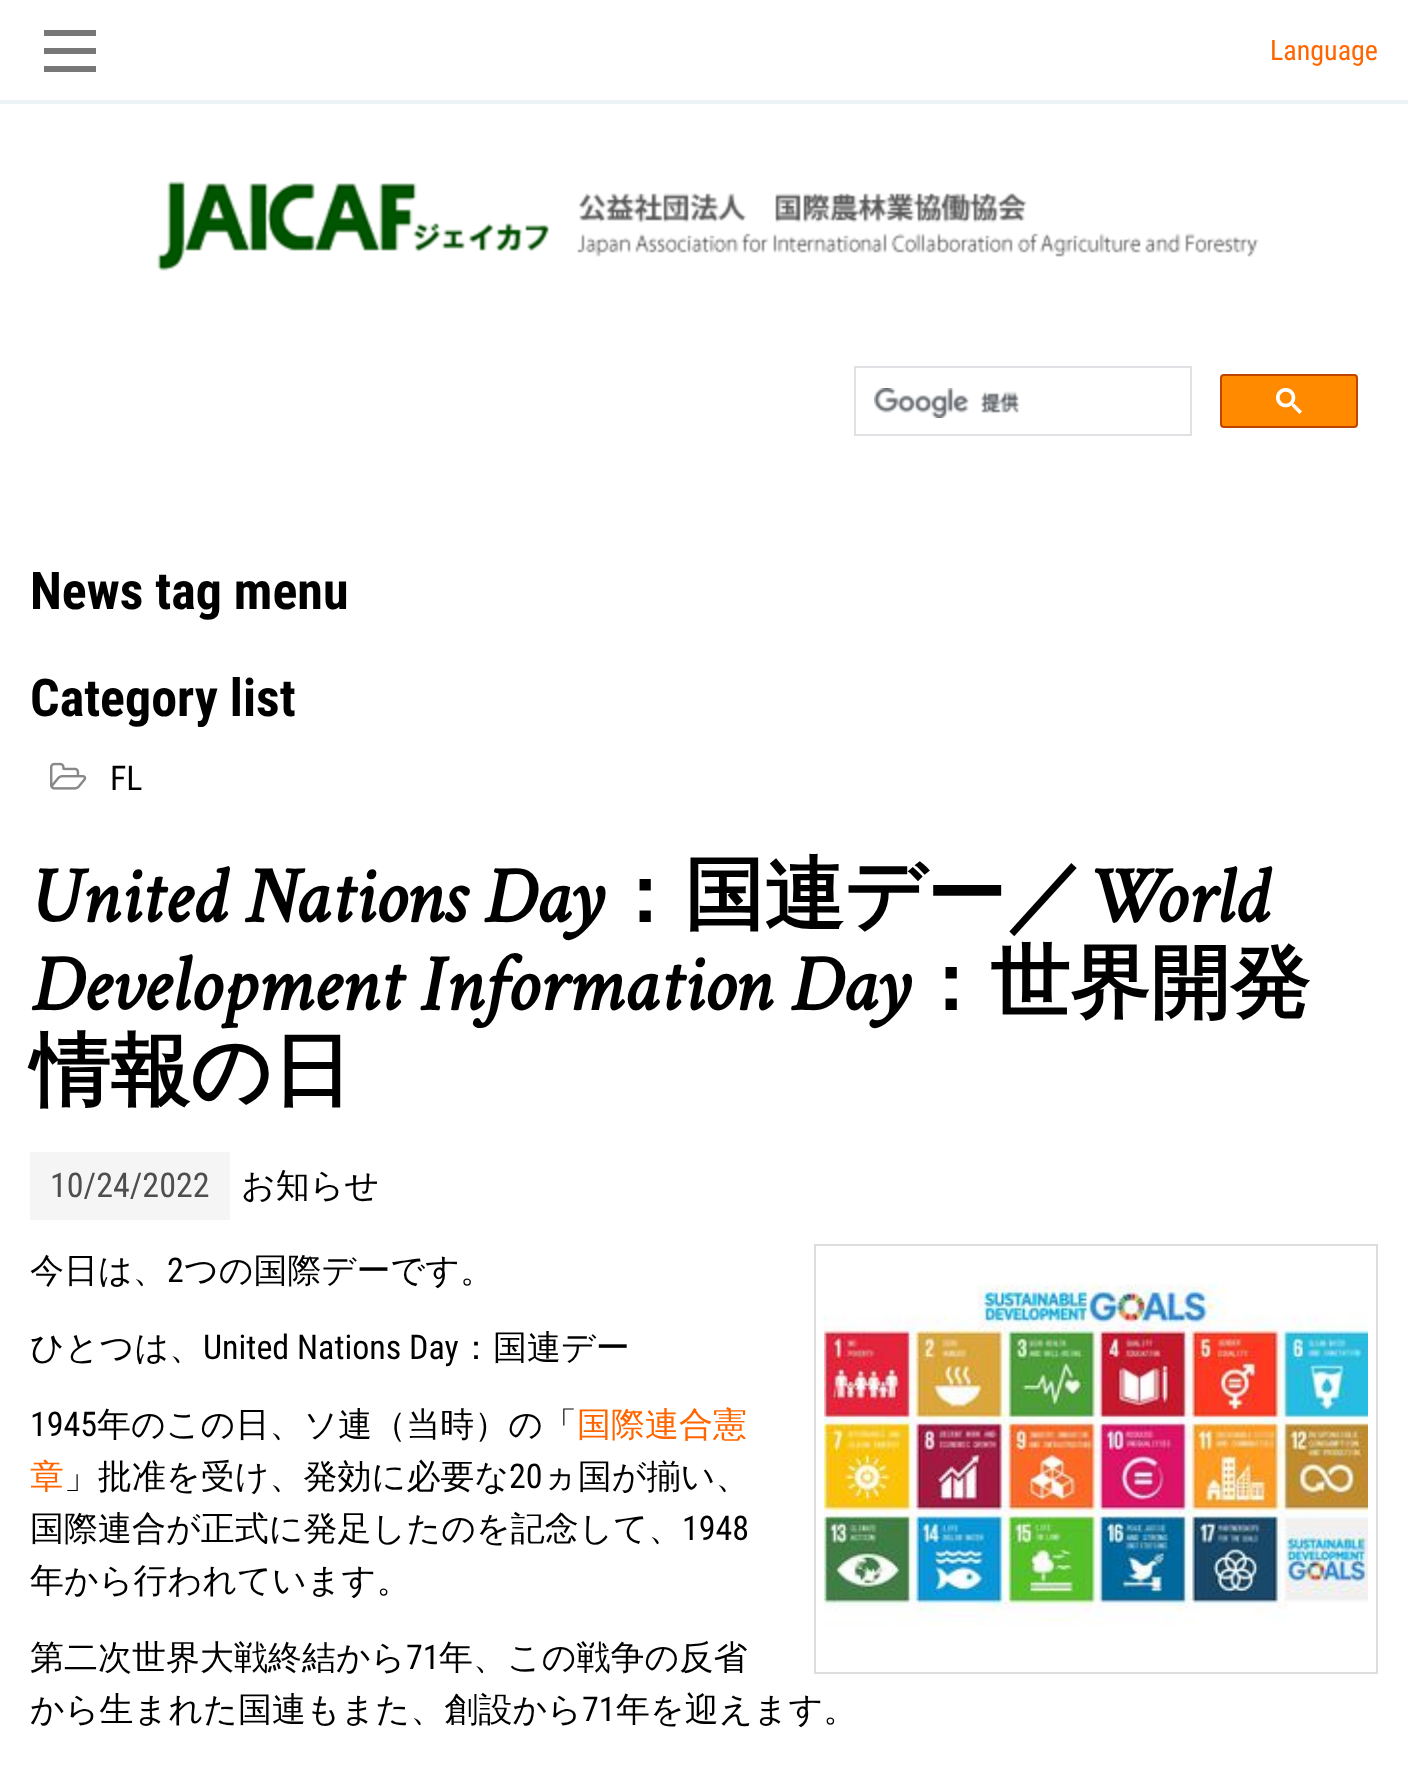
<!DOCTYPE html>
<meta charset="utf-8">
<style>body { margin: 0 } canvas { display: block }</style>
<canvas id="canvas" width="1408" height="1772"></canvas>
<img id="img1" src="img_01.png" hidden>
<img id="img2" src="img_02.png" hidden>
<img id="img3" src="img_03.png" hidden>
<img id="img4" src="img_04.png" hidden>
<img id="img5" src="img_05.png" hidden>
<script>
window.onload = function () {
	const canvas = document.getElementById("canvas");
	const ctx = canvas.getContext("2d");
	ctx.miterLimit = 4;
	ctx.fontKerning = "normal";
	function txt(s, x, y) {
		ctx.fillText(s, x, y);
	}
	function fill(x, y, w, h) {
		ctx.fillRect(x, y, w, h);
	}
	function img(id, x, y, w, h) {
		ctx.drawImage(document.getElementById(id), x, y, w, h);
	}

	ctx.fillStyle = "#FFFFFF";
	fill(0, 0, 1408, 1772);
	ctx.fillStyle = "#777777";
	fill(44, 48, 52, 6);
	fill(44, 30, 52, 6);
	fill(44, 66, 52, 6);
	ctx.fillStyle = "#EBF3F6";
	fill(0, 100, 1408, 4);
	img("img1", 157, 181, 1102, 90);
	ctx.strokeStyle = "#DFE1E5";
	ctx.lineWidth = 2;
	ctx.strokeRect(855, 367, 336, 68);
	img("img2", 874, 388, 146, 30);
	ctx.fillStyle = "#FF8A00";
	ctx.beginPath();
	ctx.roundRect(1221, 375, 136, 52, 3);
	ctx.fill();
	ctx.strokeStyle = "#BF4400";
	ctx.stroke();
	img("img3", 1276, 388, 26, 26);
	img("img4", 50, 762, 37, 28);
	ctx.fillStyle = "#F5F5F5";
	fill(30, 1152, 200, 68);
	ctx.strokeStyle = "#DDDDDD";
	ctx.strokeRect(815, 1245, 562, 428);
	img("img5", 824, 1283, 544, 343);
	ctx.font = "28px Roboto Condensed";
	ctx.fillStyle = "#FF6600";
	txt("Language", 1270, 60);
	ctx.font = "bold 52px Roboto Condensed";
	ctx.fillStyle = "#000000";
	txt("News tag menu", 30, 609);
	txt("Category list", 30, 716);
	ctx.font = "34px Roboto Condensed";
	txt("FL", 110, 790);
	ctx.font = "italic bold 80px Crimson Text";
	txt("United Nations Day", 30, 922);
	ctx.font = "bold 80px WenQuanYi Zen Hei";
	txt("：国連デー／", 604, 922);
	ctx.font = "italic bold 80px Crimson Text";
	txt("World", 1086, 922);
	txt("Development Information Day", 30, 1010);
	ctx.font = "bold 80px WenQuanYi Zen Hei";
	txt("：世界開発", 910, 1010);
	txt("情報の日", 30, 1098);
	ctx.font = "34px Roboto Condensed";
	ctx.fillStyle = "#4E4E4E";
	txt("10/24/2022", 50, 1197);
	ctx.font = "500 34px WenQuanYi Zen Hei";
	ctx.fillStyle = "#000000";
	txt("お知らせ", 241, 1197);
	txt("今日は、", 30, 1282);
	ctx.font = "34px Roboto Condensed";
	txt("2", 167, 1282);
	ctx.font = "500 34px WenQuanYi Zen Hei";
	txt("つの国際デーです。", 184, 1282);
	txt("ひとつは、", 30, 1359);
	ctx.font = "34px Roboto Condensed";
	txt("United Nations Day", 203, 1359);
	ctx.font = "500 34px WenQuanYi Zen Hei";
	txt("：国連デー", 459, 1359);
	ctx.font = "34px Roboto Condensed";
	txt("1945", 30, 1436);
	ctx.font = "500 34px WenQuanYi Zen Hei";
	txt("年のこの日、ソ連（当時）の「", 97, 1436);
	ctx.fillStyle = "#FF6600";
	txt("国際連合憲", 577, 1436);
	txt("章", 30, 1488);
	ctx.fillStyle = "#000000";
	txt("」批准を受け、発効に必要な", 64, 1488);
	ctx.font = "34px Roboto Condensed";
	txt("20", 509, 1488);
	ctx.font = "500 34px WenQuanYi Zen Hei";
	txt("ヵ国が揃い、", 543, 1488);
	txt("国際連合が正式に発足したのを記念して、", 30, 1540);
	ctx.font = "34px Roboto Condensed";
	txt("1948", 682, 1540);
	ctx.font = "500 34px WenQuanYi Zen Hei";
	txt("年から行われています。", 30, 1592);
	txt("第二次世界大戦終結から", 30, 1669);
	ctx.font = "34px Roboto Condensed";
	txt("71", 406, 1669);
	ctx.font = "500 34px WenQuanYi Zen Hei";
	txt("年、この戦争の反省", 439, 1669);
	txt("から生まれた国連もまた、創設から", 30, 1721);
	ctx.font = "34px Roboto Condensed";
	txt("71", 582, 1721);
	ctx.font = "500 34px WenQuanYi Zen Hei";
	txt("年を迎えます。", 616, 1721);
};
</script>
